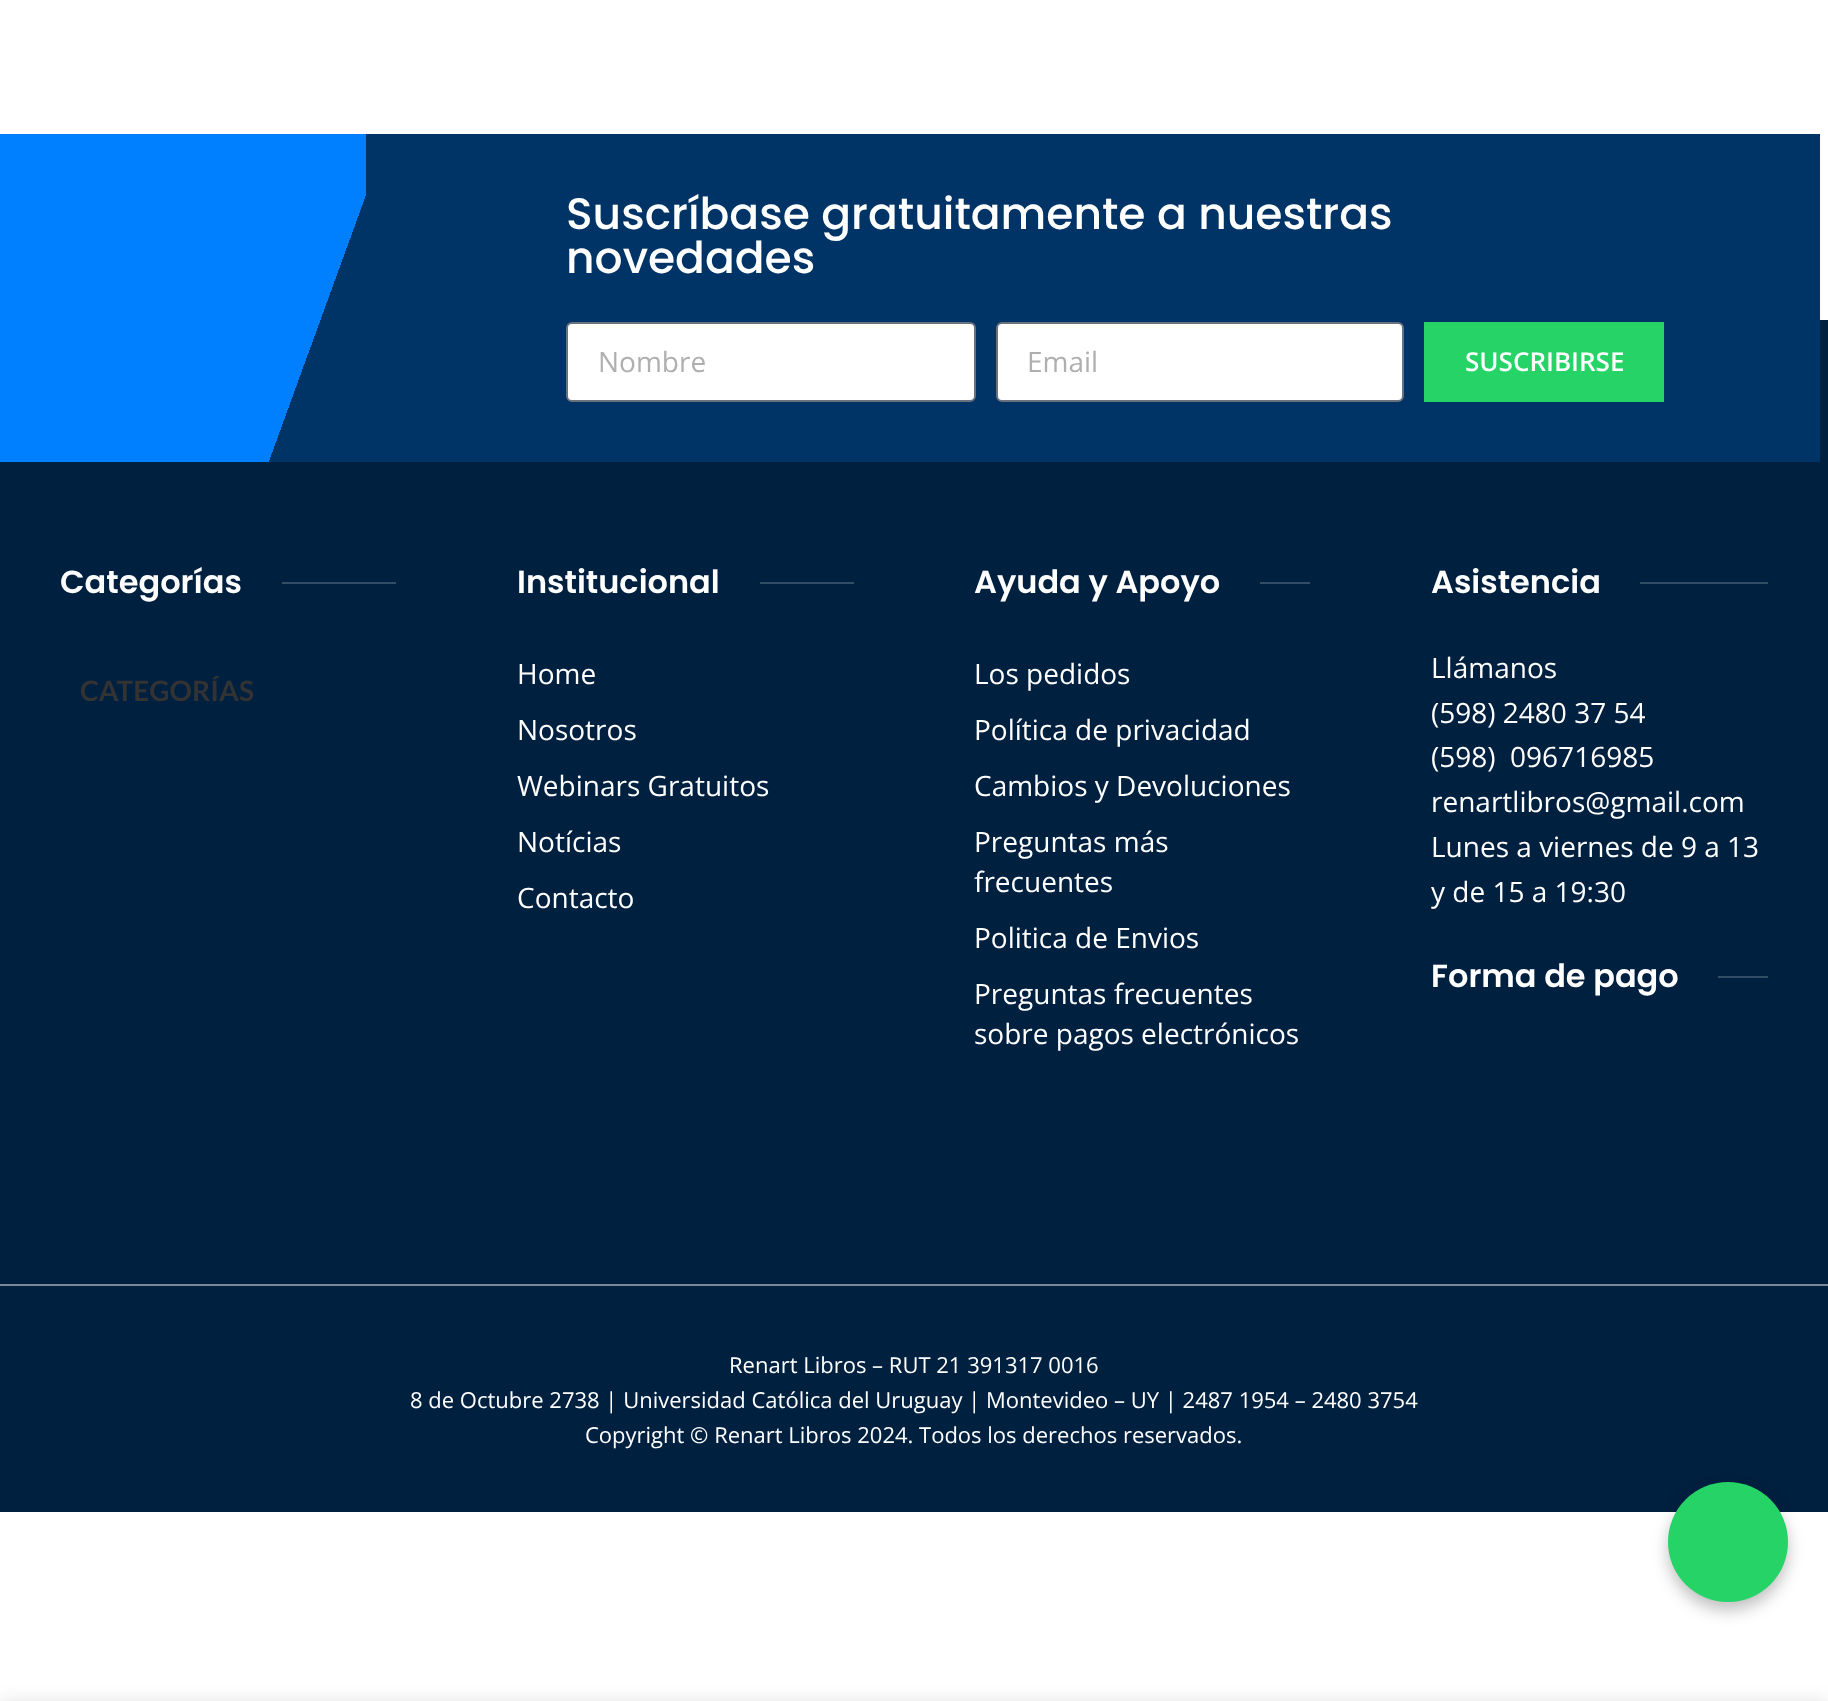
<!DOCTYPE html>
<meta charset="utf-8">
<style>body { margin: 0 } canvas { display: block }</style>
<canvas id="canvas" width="1828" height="1701"></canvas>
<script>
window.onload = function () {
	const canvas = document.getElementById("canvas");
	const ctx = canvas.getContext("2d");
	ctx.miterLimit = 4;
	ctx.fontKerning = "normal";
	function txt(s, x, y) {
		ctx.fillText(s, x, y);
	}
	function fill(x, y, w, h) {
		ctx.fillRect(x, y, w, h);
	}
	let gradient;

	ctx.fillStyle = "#FFFFFF";
	fill(0, 0, 1828, 1701);
	ctx.fillStyle = "#002040";
	fill(0, 320, 1828, 964);
	gradient = ctx.createLinearGradient(-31, 220, 397, 376);
	gradient.addColorStop(0.8, "#0080FF");
	gradient.addColorStop(0.8, "#003366");
	ctx.fillStyle = gradient;
	fill(0, 134, 366, 328);
	ctx.fillStyle = "#003366";
	fill(366, 134, 1454, 328);
	ctx.fillStyle = "#FFFFFF";
	ctx.beginPath();
	ctx.roundRect(567, 323, 408, 78, 5);
	ctx.fill();
	ctx.strokeStyle = "#69727D";
	ctx.lineWidth = 2;
	ctx.stroke();
	ctx.beginPath();
	ctx.roundRect(997, 323, 406, 78, 5);
	ctx.fill();
	ctx.stroke();
	ctx.fillStyle = "#25D366";
	fill(1424, 322, 240, 80);
	ctx.fillStyle = "#334D66";
	fill(282, 582, 114, 2);
	fill(760, 582, 94, 2);
	fill(1260, 582, 50, 2);
	fill(1640, 582, 128, 2);
	fill(1718, 976, 50, 2);
	ctx.fillStyle = "#002040";
	fill(0, 1286, 1828, 226);
	ctx.fillStyle = "#78899A";
	fill(0, 1284, 1828, 2);
	ctx.fillStyle = "rgba(0, 0, 0, 0.25)";
	ctx.filter = "blur(8px)";
	ctx.beginPath();
	ctx.roundRect(1668, 1490, 120, 120, 60);
	ctx.fill();
	ctx.filter = "none";
	ctx.fillStyle = "#25D366";
	ctx.beginPath();
	ctx.arc(1728, 1542, 60, 0, Math.PI * 2);
	ctx.fill();
	ctx.fillStyle = "rgba(0, 0, 0, 0.12)";
	ctx.filter = "blur(9px)";
	ctx.beginPath();
	ctx.rect(0, 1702, 1828, 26);
	ctx.fill();
	ctx.filter = "none";
	ctx.font = "500 44px Poppins";
	ctx.fillStyle = "#FFFFFF";
	txt("Suscríbase gratuitamente a nuestras", 566, 229);
	txt("novedades", 566, 273);
	ctx.font = "28px Open Sans";
	ctx.fillStyle = "#AFAFAF";
	txt("Nombre", 598, 372);
	txt("Email", 1027, 372);
	ctx.font = "600 26px Open Sans";
	ctx.fillStyle = "#FFFFFF";
	txt("SUSCRIBIRSE", 1465, 371);
	ctx.font = "600 32px Poppins";
	txt("Categorías", 60, 593);
	ctx.font = "bold 28px Lato";
	ctx.fillStyle = "#333333";
	txt("CATEGORÍAS", 80, 701);
	ctx.font = "600 32px Poppins";
	ctx.fillStyle = "#FFFFFF";
	txt("Institucional", 517, 593);
	ctx.font = "28px Open Sans";
	txt("Home", 517, 684);
	txt("Nosotros", 517, 740);
	txt("Webinars Gratuitos", 517, 796);
	txt("Notícias", 517, 852);
	txt("Contacto", 517, 908);
	ctx.font = "600 32px Poppins";
	txt("Ayuda y Apoyo", 974, 593);
	ctx.font = "28px Open Sans";
	txt("Los pedidos", 974, 684);
	txt("Política de privacidad", 974, 740);
	txt("Cambios y Devoluciones", 974, 796);
	txt("Preguntas más", 974, 852);
	txt("frecuentes", 974, 892);
	txt("Politica de Envios", 974, 948);
	txt("Preguntas frecuentes", 974, 1004);
	txt("sobre pagos electrónicos", 974, 1044);
	ctx.font = "600 32px Poppins";
	txt("Asistencia", 1431, 593);
	ctx.font = "28px Open Sans";
	txt("Llámanos", 1431, 678);
	txt("(598) 2480 37 54", 1431, 723);
	txt("(598)  096716985", 1431, 767);
	txt("renartlibros@gmail.com", 1431, 812);
	txt("Lunes a viernes de 9 a 13", 1431, 857);
	txt("y de 15 a 19:30", 1431, 902);
	ctx.font = "600 32px Poppins";
	txt("Forma de pago", 1431, 987);
	ctx.font = "22px Open Sans";
	txt("Renart Libros – RUT 21 391317 0016", 729, 1373);
	txt("8 de Octubre 2738 | Universidad Católica del Uruguay | Montevideo – UY | 2487 1954 – 2480 3754", 410, 1408);
	txt("Copyright © Renart Libros 2024. Todos los derechos reservados.", 585, 1443);
};
</script>
